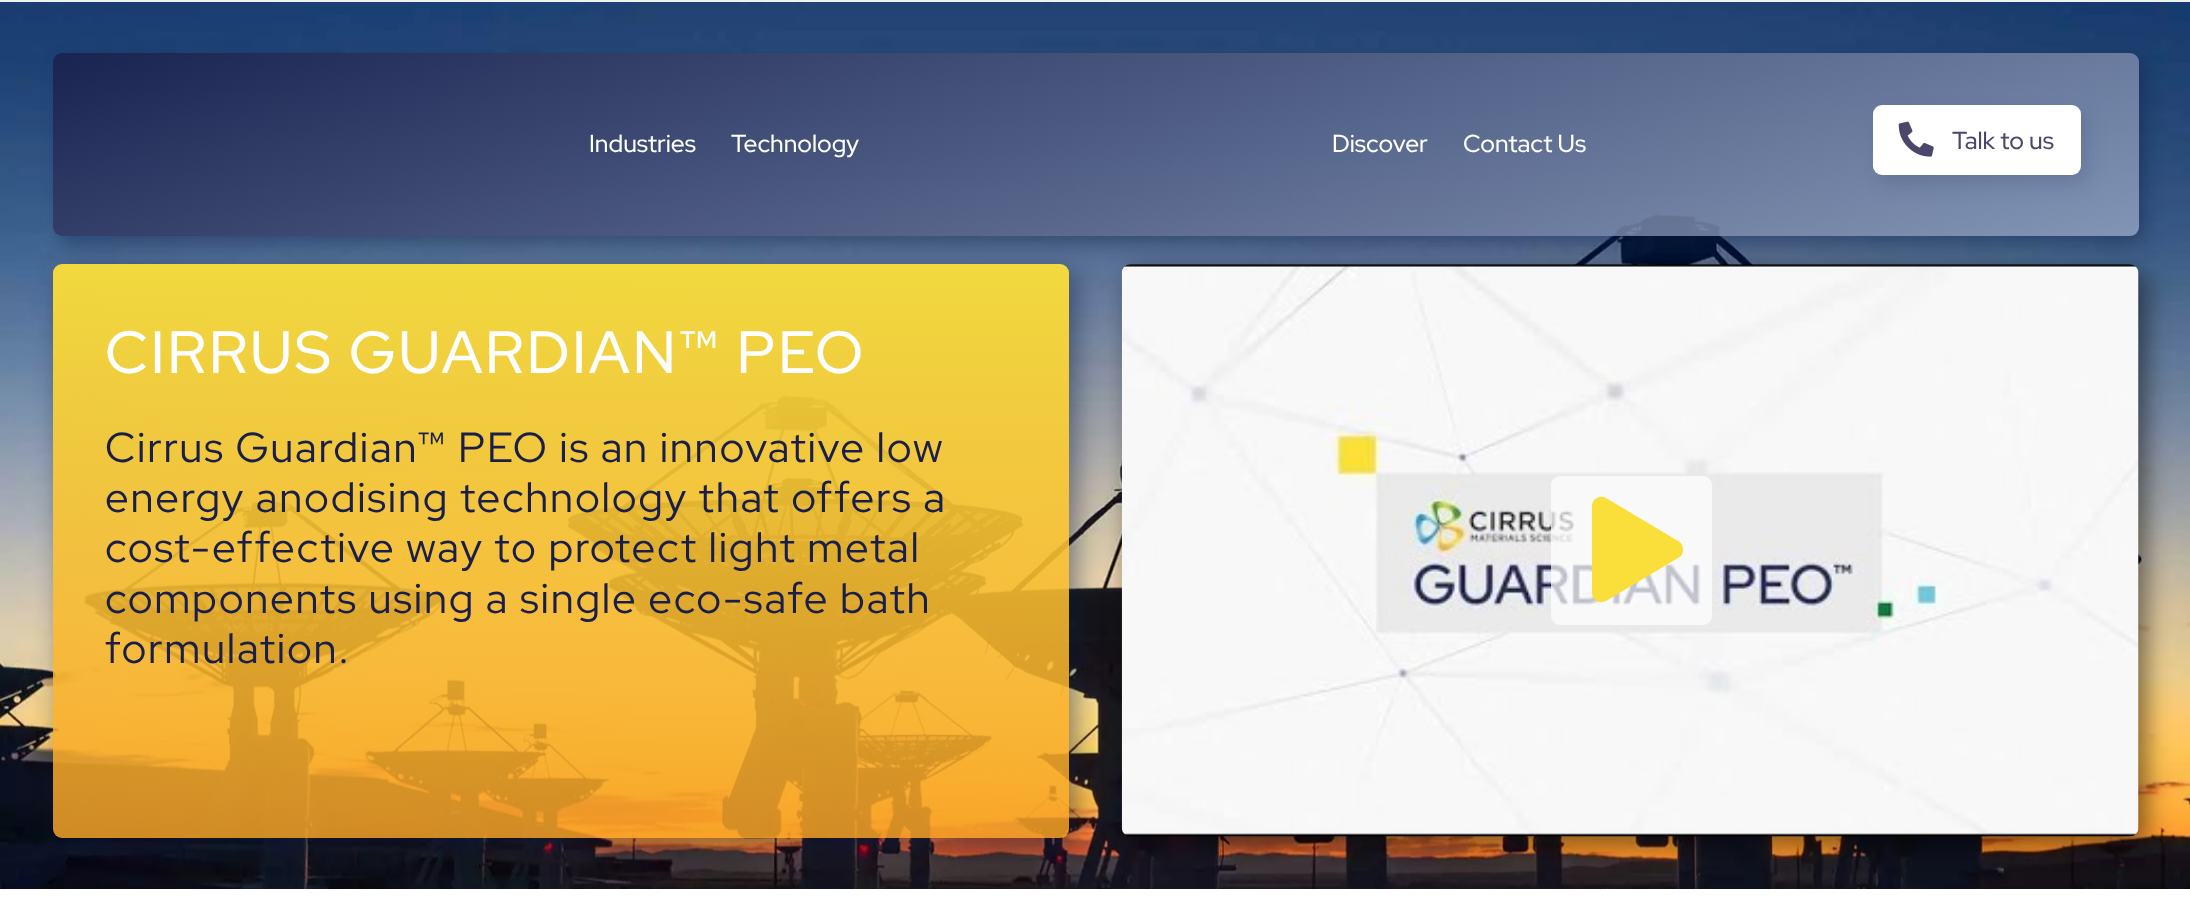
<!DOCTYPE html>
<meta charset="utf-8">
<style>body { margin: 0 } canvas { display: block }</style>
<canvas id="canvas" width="2190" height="897"></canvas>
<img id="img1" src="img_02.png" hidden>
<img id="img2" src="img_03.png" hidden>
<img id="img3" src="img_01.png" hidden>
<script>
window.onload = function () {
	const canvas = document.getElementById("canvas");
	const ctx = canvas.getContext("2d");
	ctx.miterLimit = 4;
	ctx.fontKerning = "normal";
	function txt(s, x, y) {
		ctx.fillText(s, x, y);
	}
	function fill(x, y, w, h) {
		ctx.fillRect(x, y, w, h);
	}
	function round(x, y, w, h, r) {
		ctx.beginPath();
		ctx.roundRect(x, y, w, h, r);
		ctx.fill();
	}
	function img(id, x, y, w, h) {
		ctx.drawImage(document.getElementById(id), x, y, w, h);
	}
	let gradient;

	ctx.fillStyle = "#FFFFFF";
	fill(0, 0, 2190, 897);
	ctx.fillStyle = "#F1F1F1";
	fill(0, 0, 2190, 2);
	img("img1", 0, 2, 2190, 887);
	ctx.save();
	ctx.beginPath();
	ctx.moveTo(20, 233);
	ctx.lineTo(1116, 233);
	ctx.lineTo(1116, 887);
	ctx.lineTo(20, 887);
	ctx.closePath();
	ctx.moveTo(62, 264);
	ctx.lineTo(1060, 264);
	ctx.bezierCurveTo(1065, 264, 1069, 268, 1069, 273);
	ctx.lineTo(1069, 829);
	ctx.bezierCurveTo(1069, 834, 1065, 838, 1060, 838);
	ctx.lineTo(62, 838);
	ctx.bezierCurveTo(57, 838, 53, 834, 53, 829);
	ctx.lineTo(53, 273);
	ctx.bezierCurveTo(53, 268, 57, 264, 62, 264);
	ctx.closePath();
	ctx.clip("evenodd");
	ctx.fillStyle = "rgba(10, 25, 63, 0.48)";
	ctx.filter = "blur(13px)";
	ctx.beginPath();
	ctx.roundRect(60, 273, 1016, 574, 9);
	ctx.fill();
	ctx.filter = "none";
	ctx.restore();
	gradient = ctx.createLinearGradient(561, 264, 561, 838);
	gradient.addColorStop(0, "rgba(250, 223, 58, 0.95)");
	gradient.addColorStop(1, "rgba(247, 163, 39, 0.84)");
	ctx.fillStyle = gradient;
	round(53, 264, 1016, 574, 9);
	ctx.fillStyle = "rgba(0, 0, 0, 0.5)";
	ctx.filter = "blur(12px)";
	ctx.beginPath();
	ctx.roundRect(1129, 273, 1017, 572, 9);
	ctx.fill();
	ctx.filter = "none";
	img("img2", 1121, 264, 1018, 573);
	ctx.save();
	ctx.beginPath();
	ctx.moveTo(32, 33);
	ctx.lineTo(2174, 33);
	ctx.lineTo(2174, 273);
	ctx.lineTo(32, 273);
	ctx.closePath();
	ctx.moveTo(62, 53);
	ctx.lineTo(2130, 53);
	ctx.bezierCurveTo(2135, 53, 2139, 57, 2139, 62);
	ctx.lineTo(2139, 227);
	ctx.bezierCurveTo(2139, 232, 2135, 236, 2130, 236);
	ctx.lineTo(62, 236);
	ctx.bezierCurveTo(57, 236, 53, 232, 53, 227);
	ctx.lineTo(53, 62);
	ctx.bezierCurveTo(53, 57, 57, 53, 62, 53);
	ctx.closePath();
	ctx.clip("evenodd");
	ctx.fillStyle = "rgba(10, 25, 63, 0.35)";
	ctx.filter = "blur(9px)";
	ctx.beginPath();
	ctx.roundRect(60, 61, 2086, 184, 9);
	ctx.fill();
	ctx.filter = "none";
	ctx.restore();
	gradient = ctx.createLinearGradient(944, -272, 1247, 561);
	gradient.addColorStop(0, "rgba(25, 30, 75, 0.85)");
	gradient.addColorStop(1, "rgba(142, 159, 189, 0.85)");
	ctx.fillStyle = gradient;
	round(53, 53, 2086, 183, 9);
	ctx.fillStyle = "rgba(19, 33, 88, 0.15)";
	ctx.filter = "blur(9px)";
	ctx.beginPath();
	ctx.roundRect(1880, 114, 208, 70, 9);
	ctx.fill();
	ctx.filter = "none";
	ctx.fillStyle = "#FFFFFF";
	round(1873, 105, 208, 70, 9);
	img("img3", 1898, 121, 36, 36);
	ctx.fillStyle = "rgba(255, 255, 255, 0.72)";
	round(1551, 476, 161, 149, 9);
	ctx.fillStyle = "#FADF3A";
	ctx.beginPath();
	ctx.moveTo(1678, 541);
	ctx.bezierCurveTo(1682, 543, 1683, 546, 1683, 550);
	ctx.bezierCurveTo(1683, 553, 1682, 556, 1678, 558);
	ctx.lineTo(1606, 601);
	ctx.bezierCurveTo(1603, 602, 1600, 603, 1597, 601);
	ctx.bezierCurveTo(1593, 599, 1592, 596, 1592, 592);
	ctx.lineTo(1592, 507);
	ctx.bezierCurveTo(1592, 503, 1593, 500, 1597, 498);
	ctx.bezierCurveTo(1600, 496, 1603, 497, 1606, 498);
	ctx.closePath();
	ctx.fill();
	ctx.font = "500 24.5px Red Hat Display";
	ctx.fillStyle = "#FFFFFF";
	txt("Industries", 589, 152);
	txt("Technology", 731, 152);
	txt("Discover", 1332, 152);
	txt("Contact Us", 1463, 152);
	ctx.fillStyle = "#4B476B";
	txt("Talk to us", 1952, 149);
	ctx.letterSpacing = "2.6px";
	ctx.font = "500 59.5px Red Hat Display";
	ctx.fillStyle = "#FFFFFF";
	txt("CIRRUS GUARDIAN™ PEO", 105, 373);
	ctx.letterSpacing = "1.75px";
	ctx.font = "42px Red Hat Display";
	ctx.fillStyle = "#191E4B";
	txt("Cirrus Guardian™ PEO is an innovative low", 105, 462);
	txt("energy anodising technology that offers a", 105, 512);
	txt("cost-effective way to protect light metal", 105, 562);
	txt("components using a single eco-safe bath", 105, 613);
	txt("formulation.", 105, 663);
};
</script>
